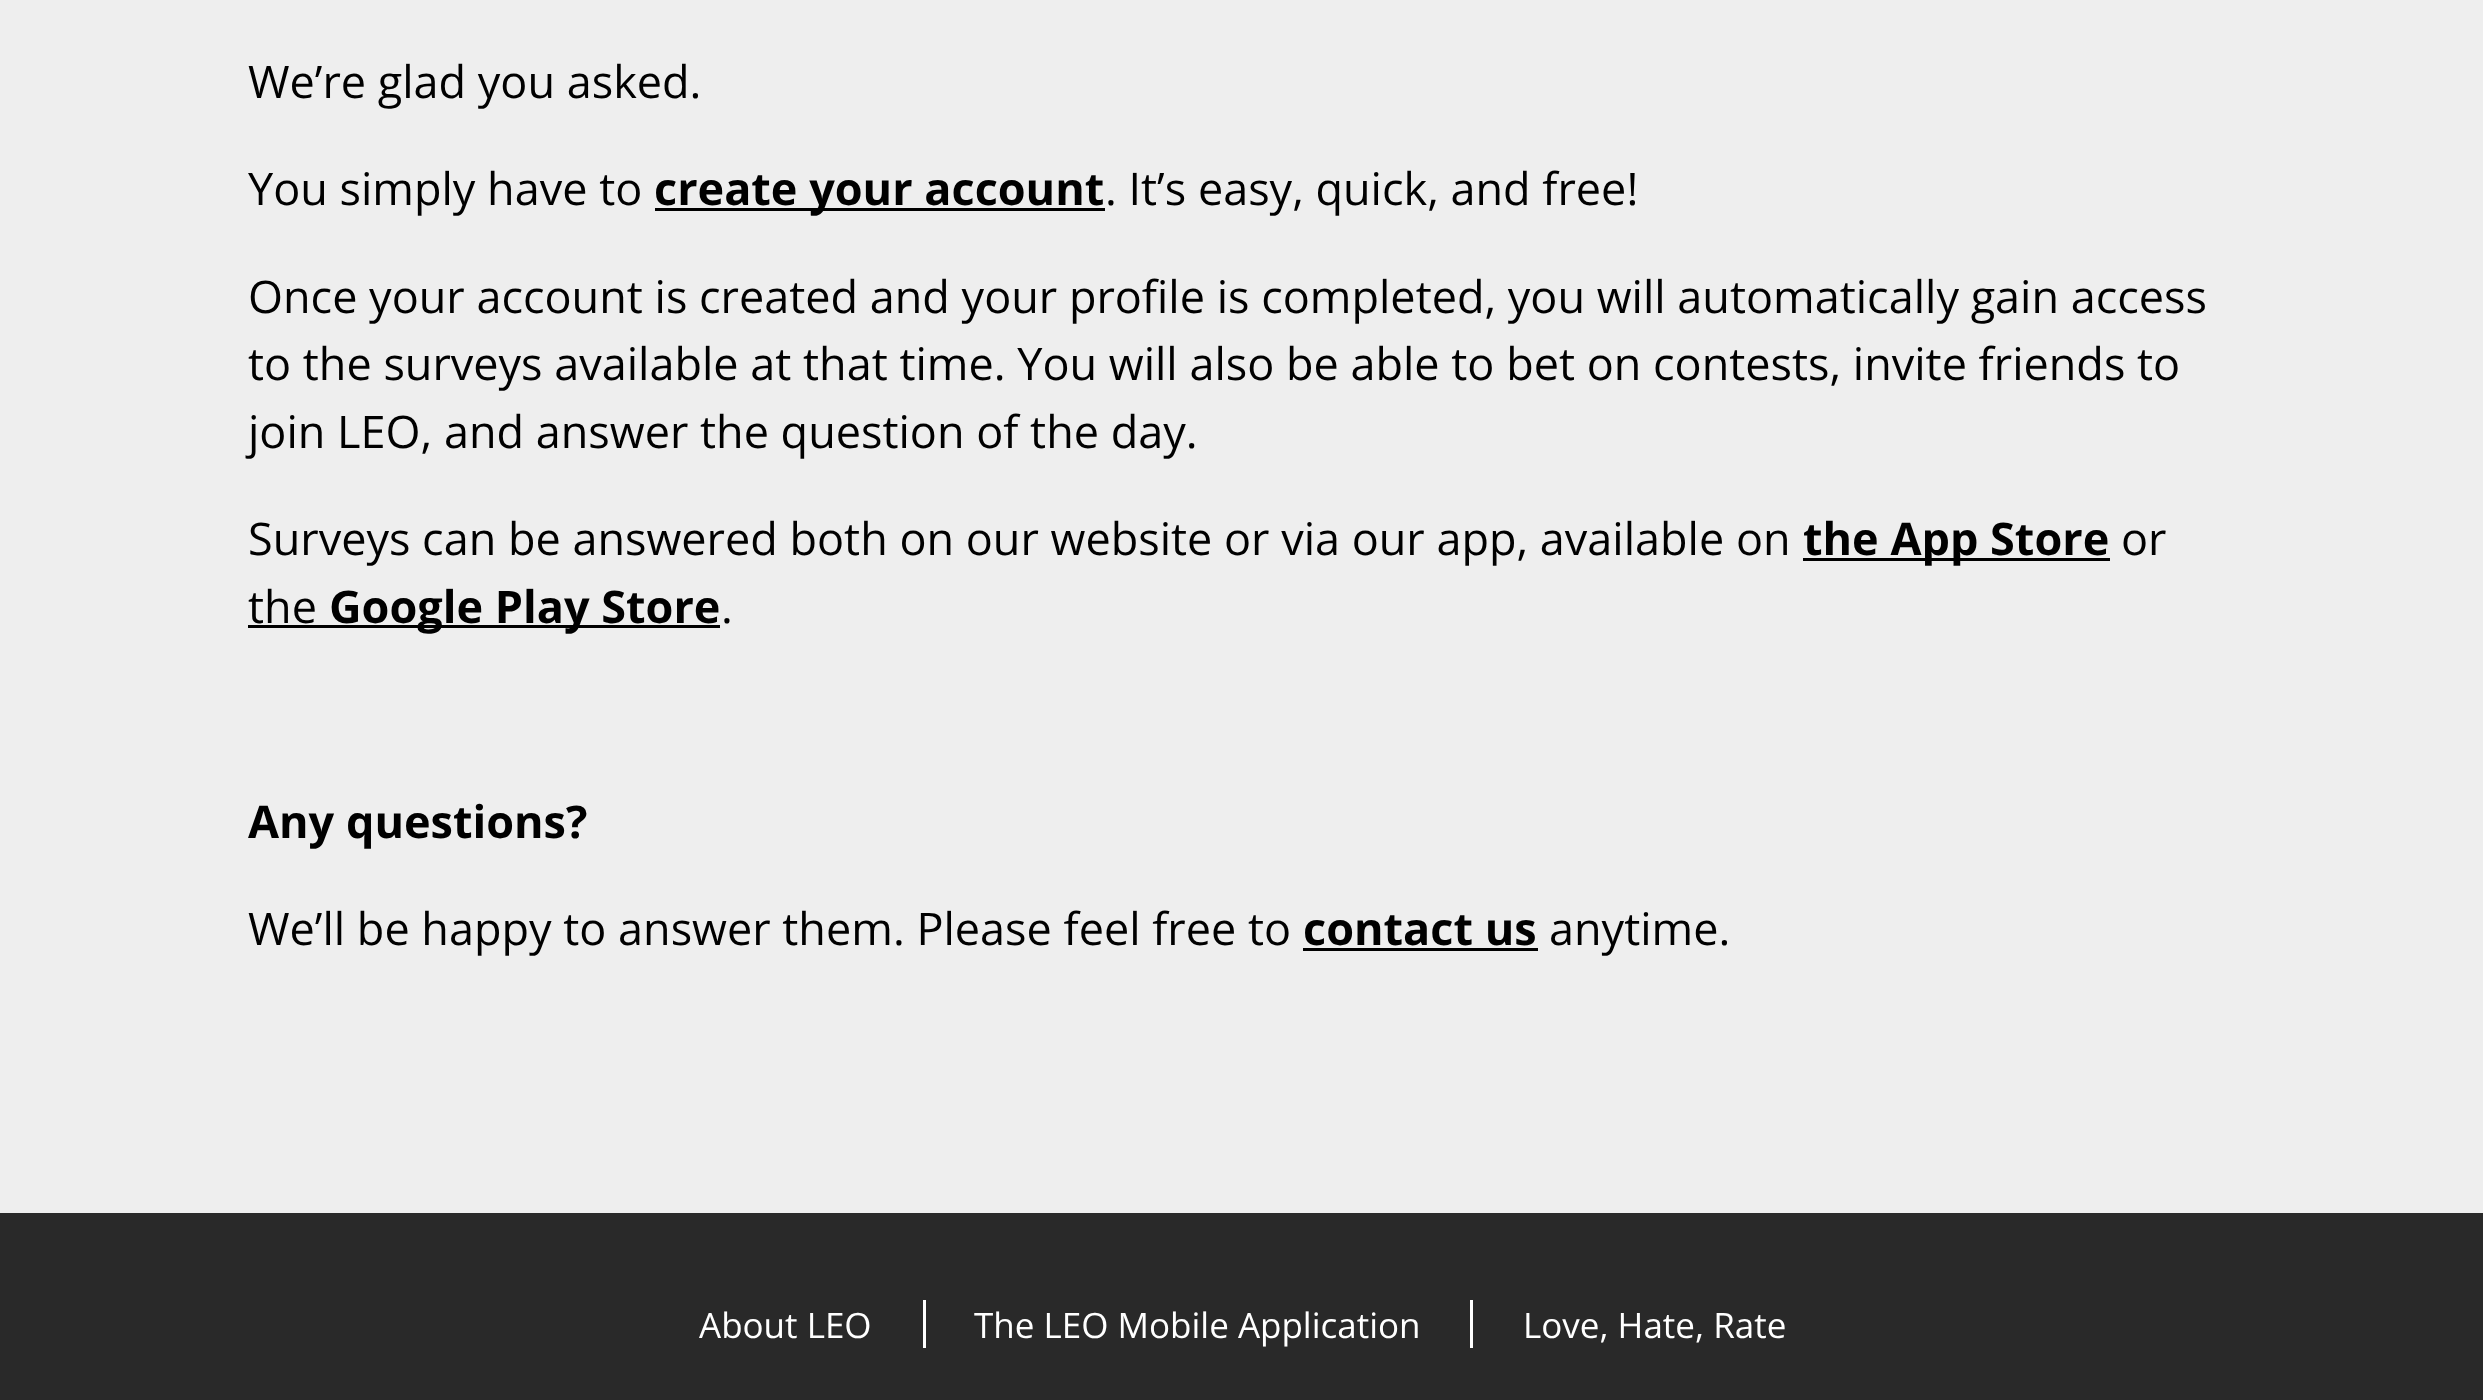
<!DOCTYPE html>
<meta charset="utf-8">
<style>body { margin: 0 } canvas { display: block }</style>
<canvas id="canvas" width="2483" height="1400"></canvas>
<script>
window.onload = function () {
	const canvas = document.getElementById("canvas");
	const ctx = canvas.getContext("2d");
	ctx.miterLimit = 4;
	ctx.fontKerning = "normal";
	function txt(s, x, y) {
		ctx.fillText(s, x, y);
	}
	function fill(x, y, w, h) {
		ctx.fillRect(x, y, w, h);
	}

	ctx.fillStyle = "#EEEEEE";
	fill(0, 0, 2483, 1400);
	ctx.fillStyle = "#000000";
	fill(655, 208, 450, 3);
	fill(1803, 558, 307, 3);
	fill(248, 625, 472, 3);
	fill(1303, 948, 235, 3);
	ctx.fillStyle = "#292929";
	fill(0, 1213, 2483, 187);
	ctx.fillStyle = "#FFFFFF";
	fill(923, 1300, 3, 48);
	fill(1470, 1300, 3, 48);
	ctx.font = "45px Open Sans";
	ctx.fillStyle = "#000000";
	txt("We’re glad you asked.", 248, 98);
	txt("You simply have to", 248, 205);
	ctx.font = "bold 45px Open Sans";
	txt("create your account", 654, 205);
	ctx.font = "45px Open Sans";
	txt(". It’s easy, quick, and free!", 1105, 205);
	txt("Once your account is created and your profile is completed, you will automatically gain access", 248, 313);
	txt("to the surveys available at that time. You will also be able to bet on contests, invite friends to", 248, 380);
	txt("join LEO, and answer the question of the day.", 248, 448);
	txt("Surveys can be answered both on our website or via our app, available on", 248, 555);
	ctx.font = "bold 45px Open Sans";
	txt("the App Store", 1803, 555);
	ctx.font = "45px Open Sans";
	txt("or", 2121, 555);
	txt("the", 248, 623);
	ctx.font = "bold 45px Open Sans";
	txt("Google Play Store", 329, 623);
	ctx.font = "45px Open Sans";
	txt(".", 721, 623);
	ctx.font = "bold 45px Open Sans";
	txt("Any questions?", 248, 838);
	ctx.font = "45px Open Sans";
	txt("We’ll be happy to answer them. Please feel free to", 248, 945);
	ctx.font = "bold 45px Open Sans";
	txt("contact us", 1303, 945);
	ctx.font = "45px Open Sans";
	txt("anytime.", 1549, 945);
	ctx.font = "35px Open Sans";
	ctx.fillStyle = "#FFFFFF";
	txt("About LEO", 699, 1338);
	txt("The LEO Mobile Application", 974, 1338);
	txt("Love, Hate, Rate", 1523, 1338);
};
</script>
